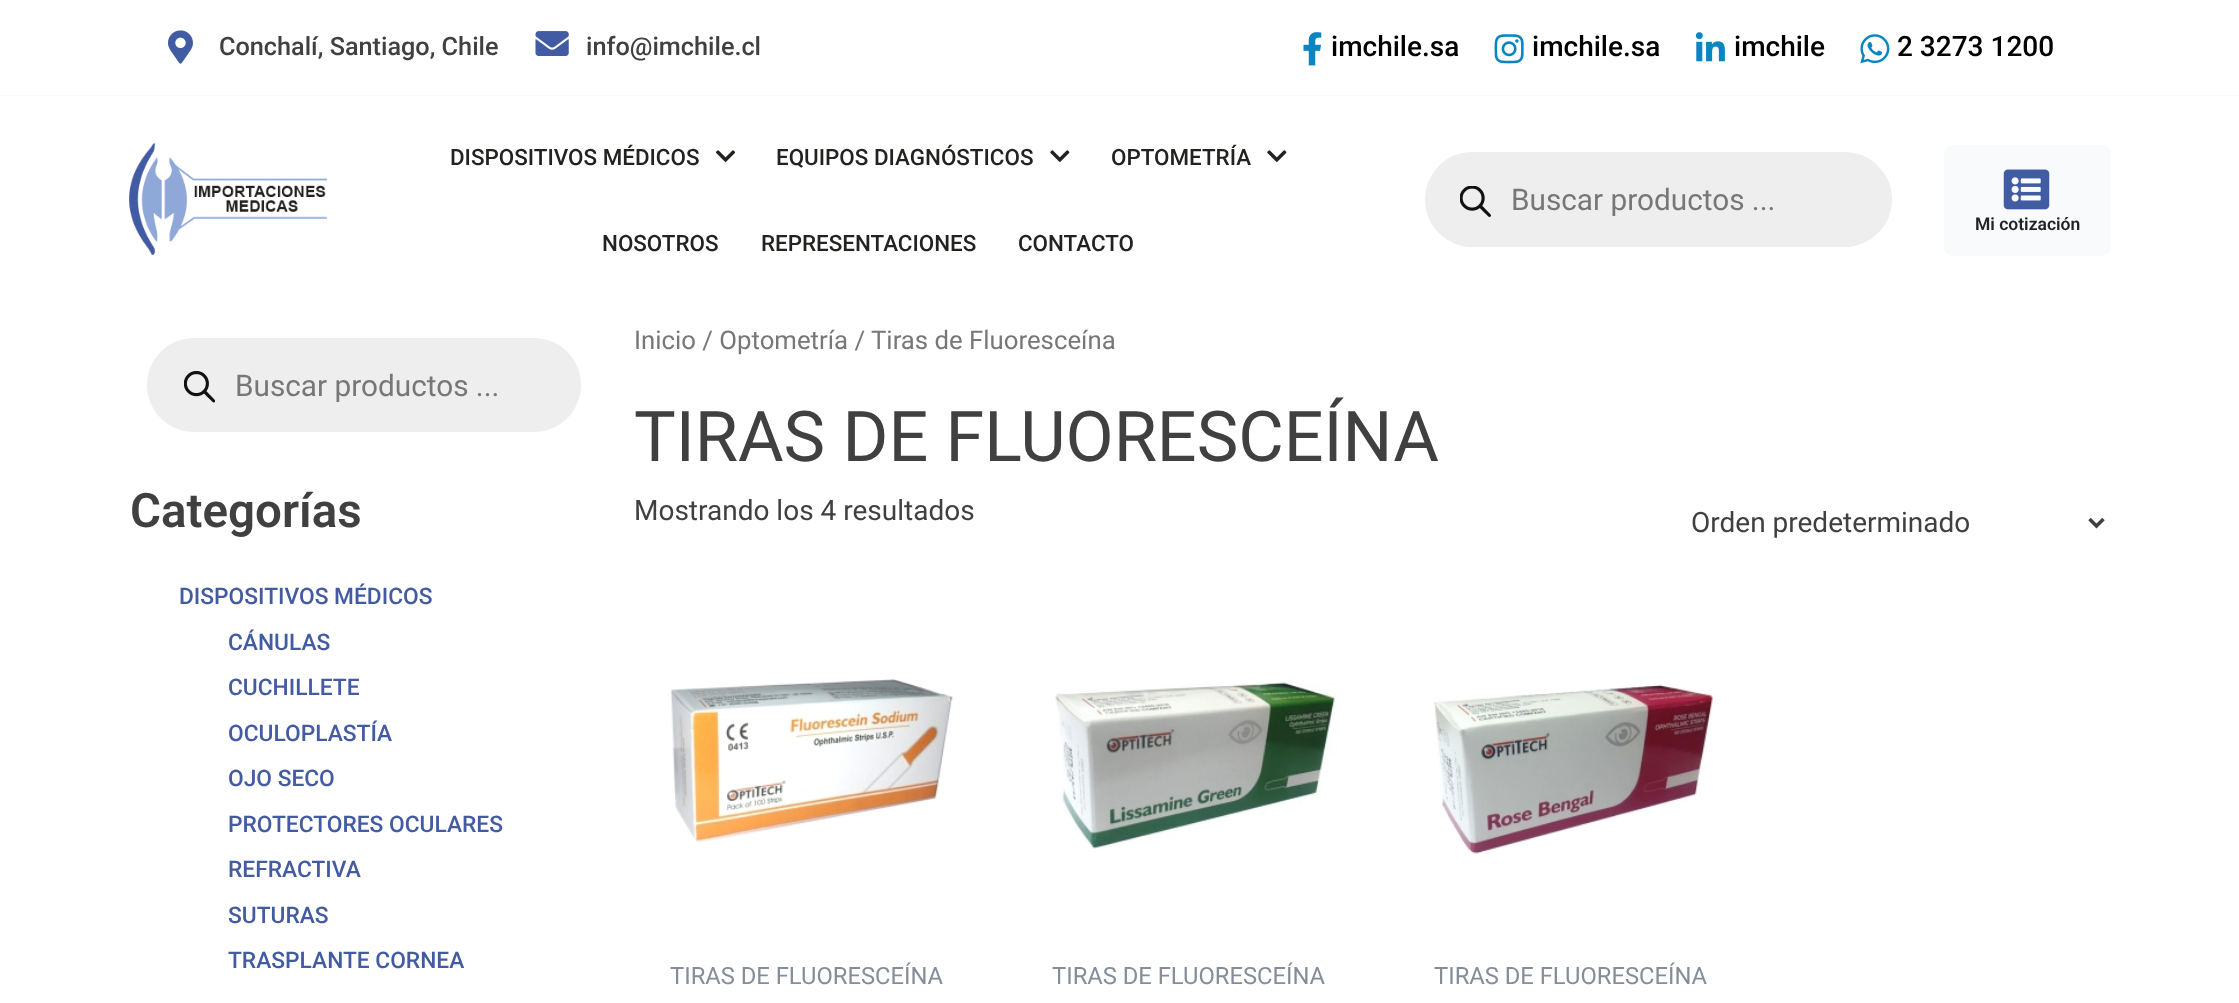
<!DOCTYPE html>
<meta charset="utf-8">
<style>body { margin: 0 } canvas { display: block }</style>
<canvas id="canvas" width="2239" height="1003"></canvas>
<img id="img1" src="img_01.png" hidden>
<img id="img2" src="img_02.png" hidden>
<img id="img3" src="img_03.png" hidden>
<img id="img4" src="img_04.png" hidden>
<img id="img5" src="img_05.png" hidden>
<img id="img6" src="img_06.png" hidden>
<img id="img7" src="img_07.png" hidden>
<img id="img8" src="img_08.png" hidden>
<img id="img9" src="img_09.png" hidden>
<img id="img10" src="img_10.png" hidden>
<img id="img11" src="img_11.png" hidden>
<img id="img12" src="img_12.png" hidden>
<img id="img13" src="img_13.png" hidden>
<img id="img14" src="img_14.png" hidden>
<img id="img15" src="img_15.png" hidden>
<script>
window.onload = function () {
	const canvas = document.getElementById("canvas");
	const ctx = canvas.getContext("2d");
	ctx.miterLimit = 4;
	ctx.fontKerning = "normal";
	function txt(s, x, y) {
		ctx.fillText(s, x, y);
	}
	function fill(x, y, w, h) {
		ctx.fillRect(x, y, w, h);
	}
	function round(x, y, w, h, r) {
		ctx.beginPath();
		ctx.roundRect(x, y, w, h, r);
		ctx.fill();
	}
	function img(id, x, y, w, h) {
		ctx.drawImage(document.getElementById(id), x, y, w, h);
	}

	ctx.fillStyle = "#FFFFFF";
	fill(0, 0, 2239, 1003);
	ctx.fillStyle = "#F9FAFB";
	fill(0, 95, 2239, 1);
	img("img1", 168, 30, 25, 34);
	img("img2", 535, 31, 34, 25);
	img("img3", 1303, 32, 19, 34);
	img("img4", 1494, 34, 30, 30);
	img("img5", 1695, 32, 30, 30);
	img("img6", 1860, 34, 30, 30);
	img("img7", 129, 143, 199, 112);
	img("img8", 716, 150, 20, 12);
	img("img9", 1050, 150, 20, 12);
	img("img9", 1267, 150, 20, 12);
	ctx.fillStyle = "#EEEEEE";
	round(1425, 152, 467, 95, 47.5);
	img("img10", 1460, 186, 31, 31);
	ctx.fillStyle = "#F9FAFB";
	round(1944, 145, 167, 111, 9);
	img("img11", 2003, 169, 47, 41);
	ctx.fillStyle = "#EEEEEE";
	round(147, 338, 434, 94, 47);
	img("img12", 184, 371, 31, 32);
	ctx.beginPath();
	ctx.moveTo(2089.5, 519);
	ctx.lineTo(2096.5, 526);
	ctx.lineTo(2103.5, 519);
	ctx.strokeStyle = "#404040";
	ctx.lineWidth = 3.5;
	ctx.stroke();
	img("img13", 670, 679, 283, 164);
	img("img14", 1055, 682, 285, 167);
	img("img15", 1434, 684, 280, 170);
	ctx.font = "500 25.25px Roboto";
	ctx.fillStyle = "#404040";
	txt("Conchalí, Santiago, Chile", 219, 55);
	txt("info@imchile.cl", 586, 55);
	ctx.font = "500 28px Roboto";
	ctx.fillStyle = "#000000";
	txt("imchile.sa", 1331, 56);
	txt("imchile.sa", 1532, 56);
	txt("imchile", 1734, 56);
	txt("2 3273 1200", 1897, 56);
	ctx.font = "500 22.4px Roboto";
	ctx.fillStyle = "#222220";
	txt("DISPOSITIVOS MÉDICOS", 450, 165);
	txt("EQUIPOS DIAGNÓSTICOS", 776, 165);
	txt("OPTOMETRÍA", 1111, 165);
	txt("NOSOTROS", 602, 251);
	txt("REPRESENTACIONES", 761, 251);
	txt("CONTACTO", 1018, 251);
	ctx.font = "29.75px Roboto";
	ctx.fillStyle = "#777777";
	txt("Buscar productos ...", 1511, 210);
	ctx.font = "600 17.5px Roboto";
	ctx.fillStyle = "#222220";
	txt("Mi cotización", 1975, 230);
	ctx.font = "29.75px Roboto";
	ctx.fillStyle = "#777777";
	txt("Buscar productos ...", 235, 396);
	ctx.font = "600 47.5px Roboto";
	ctx.fillStyle = "#404040";
	txt("Categorías", 130, 527);
	ctx.font = "500 22.75px Roboto";
	ctx.fillStyle = "#435BA1";
	txt("DISPOSITIVOS MÉDICOS", 179, 604);
	txt("CÁNULAS", 228, 650);
	txt("CUCHILLETE", 228, 695);
	txt("OCULOPLASTÍA", 228, 741);
	txt("OJO SECO", 228, 786);
	txt("PROTECTORES OCULARES", 228, 832);
	txt("REFRACTIVA", 228, 877);
	txt("SUTURAS", 228, 923);
	txt("TRASPLANTE CORNEA", 228, 968);
	ctx.font = "25.75px Roboto";
	ctx.fillStyle = "#777777";
	txt("Inicio / Optometría / Tiras de Fluoresceína", 634, 349);
	ctx.font = "70px Roboto";
	ctx.fillStyle = "#404040";
	txt("TIRAS DE FLUORESCEÍNA", 634, 461);
	ctx.font = "28px Roboto";
	txt("Mostrando los 4 resultados", 634, 520);
	txt("Orden predeterminado", 1691, 532);
	ctx.font = "23.75px Roboto";
	ctx.fillStyle = "#858D99";
	txt("TIRAS DE FLUORESCEÍNA", 670, 984);
	txt("TIRAS DE FLUORESCEÍNA", 1052, 984);
	txt("TIRAS DE FLUORESCEÍNA", 1434, 984);
};
</script>
